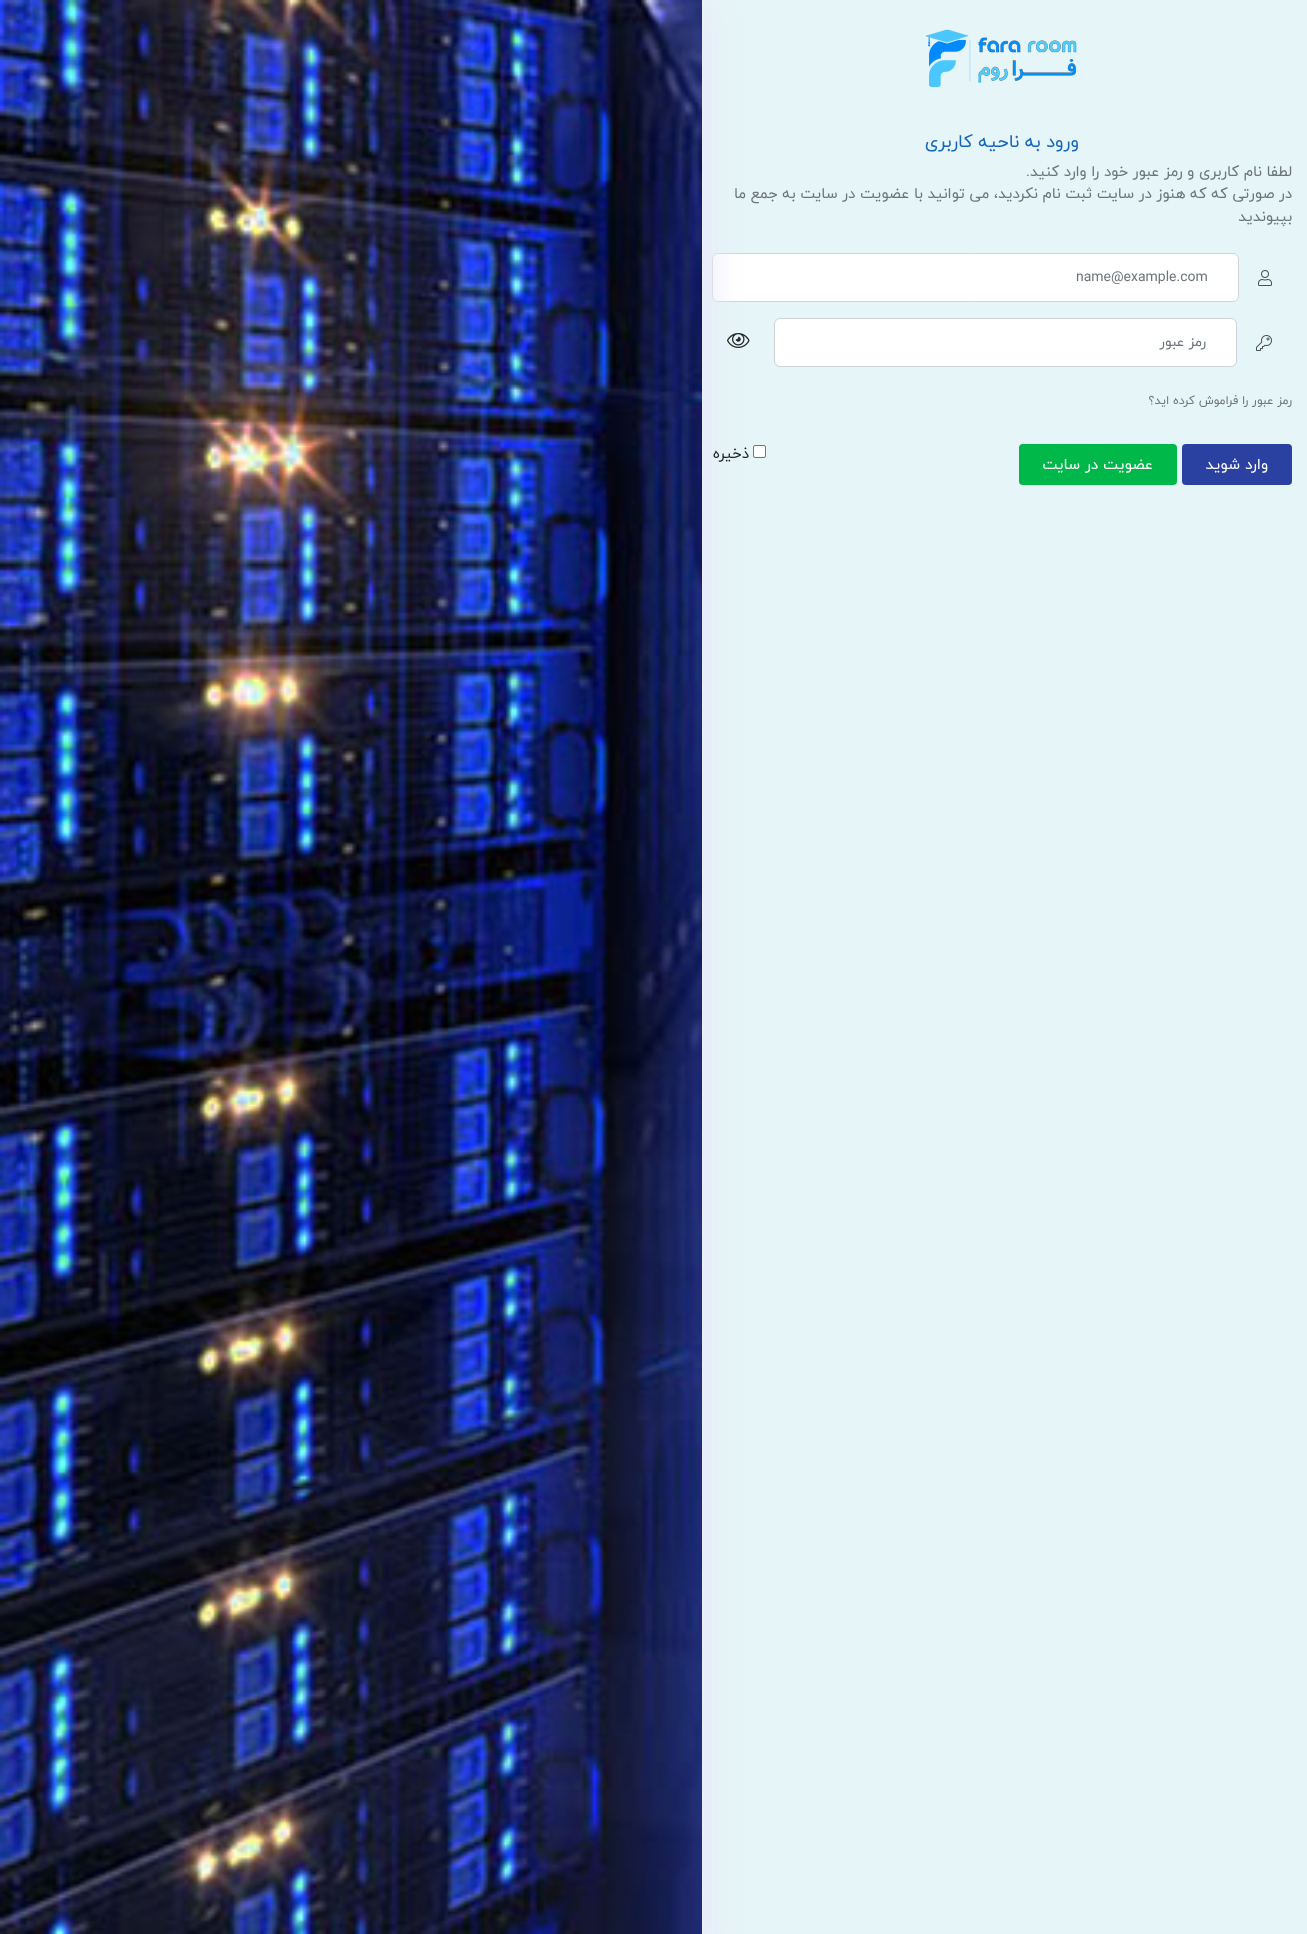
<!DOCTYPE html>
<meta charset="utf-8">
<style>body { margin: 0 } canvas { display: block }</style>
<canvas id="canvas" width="1307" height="1934"></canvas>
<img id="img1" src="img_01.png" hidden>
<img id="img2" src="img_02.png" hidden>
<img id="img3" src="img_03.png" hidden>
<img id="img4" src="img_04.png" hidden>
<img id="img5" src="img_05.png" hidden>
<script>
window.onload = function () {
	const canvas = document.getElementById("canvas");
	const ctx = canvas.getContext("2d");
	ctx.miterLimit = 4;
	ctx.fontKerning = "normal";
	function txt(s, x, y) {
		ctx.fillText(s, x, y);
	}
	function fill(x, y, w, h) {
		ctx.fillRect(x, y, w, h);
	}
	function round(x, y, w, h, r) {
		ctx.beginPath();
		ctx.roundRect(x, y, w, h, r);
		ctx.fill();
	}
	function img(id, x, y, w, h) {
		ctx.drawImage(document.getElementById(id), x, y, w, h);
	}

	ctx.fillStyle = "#E6F5F8";
	fill(0, 0, 1307, 1934);
	img("img1", 925, 29, 152, 58);
	img("img2", 1258, 270, 14, 16);
	ctx.fillStyle = "#FFFFFF";
	ctx.beginPath();
	ctx.roundRect(712.5, 253.5, 526, 48, 5.5);
	ctx.fill();
	ctx.strokeStyle = "#CED4DA";
	ctx.stroke();
	img("img3", 1256, 335, 16, 16);
	ctx.beginPath();
	ctx.roundRect(774.5, 318.5, 462, 48, 5.5);
	ctx.fill();
	ctx.stroke();
	ctx.beginPath();
	ctx.roundRect(753.5, 445.5, 12, 12, 1.5);
	ctx.fill();
	ctx.strokeStyle = "#767676";
	ctx.stroke();
	ctx.fillStyle = "#EAEAF9";
	ctx.filter = "blur(16.5px)";
	ctx.beginPath();
	ctx.rect(-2, 6, 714, 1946);
	ctx.fill();
	ctx.filter = "none";
	img("img4", 727, 333, 23, 15);
	ctx.fillStyle = "#2B41A1";
	round(1182, 444, 110, 41, 4);
	ctx.fillStyle = "#00B74A";
	round(1019, 444, 158, 41, 4);
	img("img5", 0, 0, 702, 1934);
	ctx.direction = "rtl";
	ctx.font = "18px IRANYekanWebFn";
	ctx.fillStyle = "#1566BF";
	txt("ورود به ناحیه کاربری", 1079, 147);
	ctx.font = "15px IRANYekanWebFn";
	ctx.fillStyle = "#6C757D";
	txt("لطفا نام کاربری و رمز عبور خود را وارد کنید.", 1292, 176);
	txt("در صورتی که که هنوز در سایت ثبت نام نکردید، می توانید با عضویت در سایت به جمع ما", 1292, 198);
	txt("بپیوندید", 1292, 221);
	ctx.direction = "ltr";
	ctx.font = "14px IRANYekanWebFn";
	txt("name@example.com", 1076, 281);
	ctx.direction = "rtl";
	txt("رمز عبور", 1206, 346);
	ctx.font = "12px IRANYekanWebFn";
	txt("رمز عبور را فراموش کرده اید؟", 1292, 404);
	ctx.font = "15px IRANYekanWebFn";
	ctx.fillStyle = "#212529";
	txt("ذخیره", 749, 458);
	ctx.font = "15.25px IRANYekanWebFn";
	ctx.fillStyle = "#FFFFFF";
	txt("وارد شوید", 1268, 469);
	txt("عضویت در سایت", 1153, 469);
};
</script>
